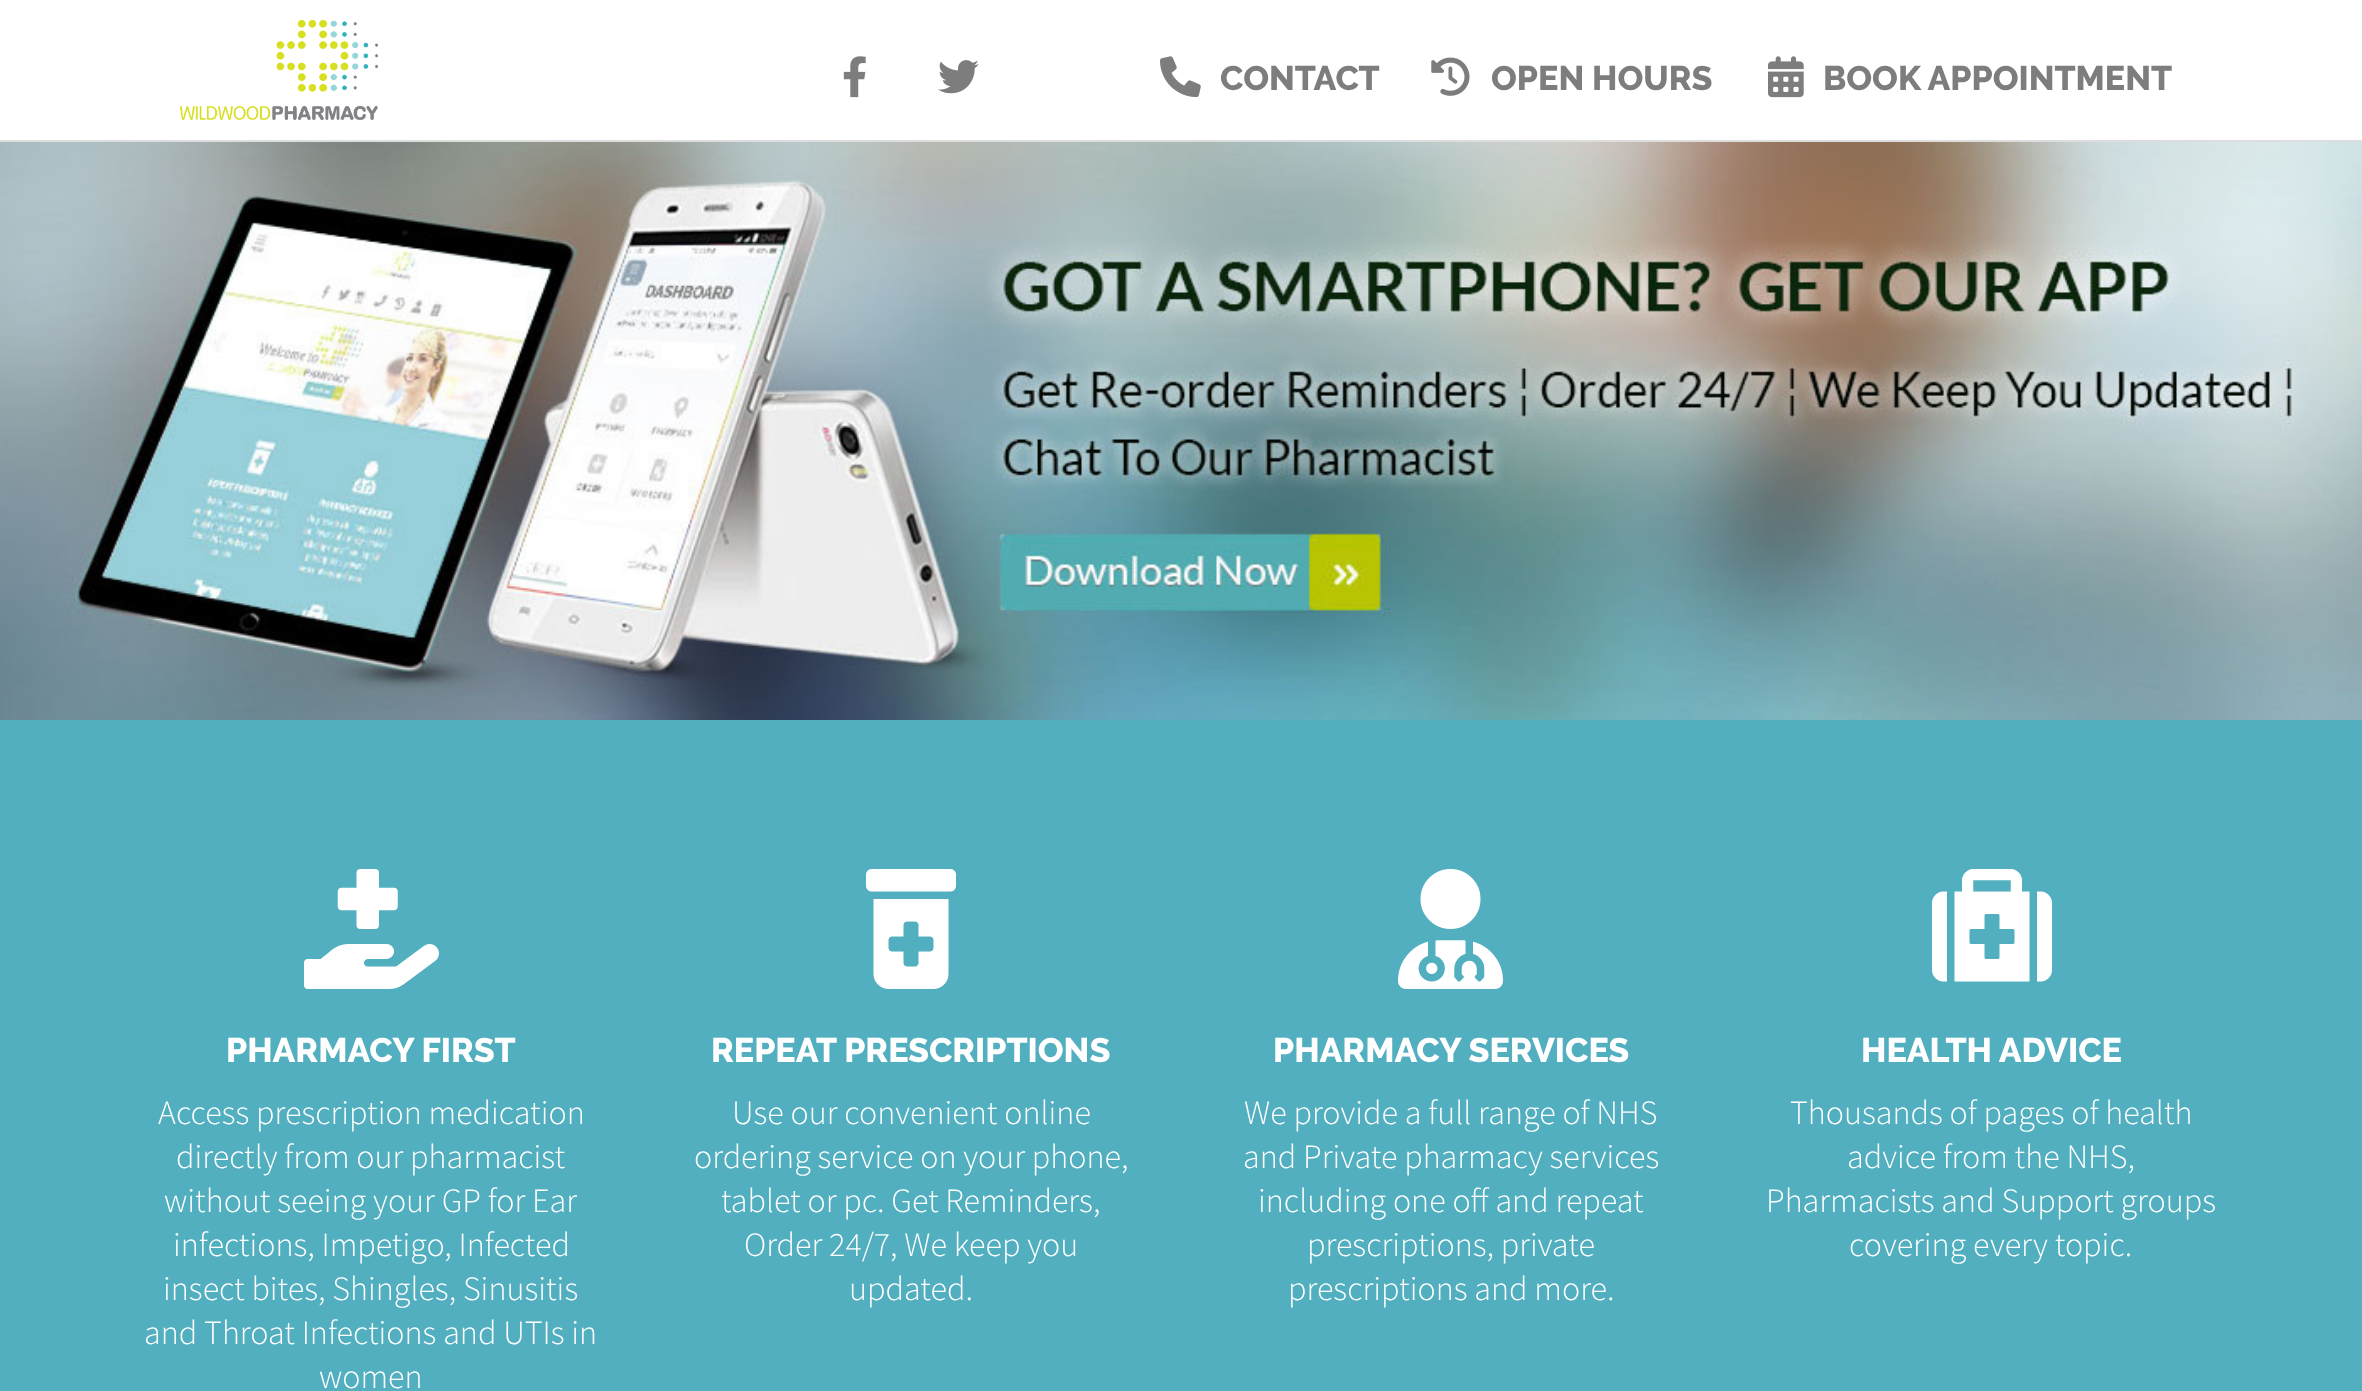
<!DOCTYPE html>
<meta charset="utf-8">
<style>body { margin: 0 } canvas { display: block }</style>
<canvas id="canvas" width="2362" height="1391"></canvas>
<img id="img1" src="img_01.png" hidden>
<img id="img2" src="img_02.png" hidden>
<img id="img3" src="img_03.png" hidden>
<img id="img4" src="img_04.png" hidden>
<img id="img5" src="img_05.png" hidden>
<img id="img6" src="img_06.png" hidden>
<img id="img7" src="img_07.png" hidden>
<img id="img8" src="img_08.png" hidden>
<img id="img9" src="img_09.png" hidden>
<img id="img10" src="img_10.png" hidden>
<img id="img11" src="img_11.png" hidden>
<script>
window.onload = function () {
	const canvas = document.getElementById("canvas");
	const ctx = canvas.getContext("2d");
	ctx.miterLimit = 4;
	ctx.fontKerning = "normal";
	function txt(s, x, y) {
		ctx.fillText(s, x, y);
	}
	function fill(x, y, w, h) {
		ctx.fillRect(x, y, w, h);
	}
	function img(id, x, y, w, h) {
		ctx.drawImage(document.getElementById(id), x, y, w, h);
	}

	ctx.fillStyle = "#52AFBF";
	fill(0, 0, 2362, 1391);
	ctx.fillStyle = "#FFFFFF";
	fill(0, 0, 2362, 140);
	ctx.fillStyle = "#DDDDDD";
	fill(0, 140, 2362, 2);
	img("img1", 180, 20, 198, 100);
	img("img2", 843, 56, 23, 42);
	img("img3", 938, 60, 41, 34);
	img("img4", 1160, 56, 41, 42);
	img("img5", 1431, 57, 39, 39);
	img("img6", 1768, 56, 36, 42);
	img("img7", 0, 142, 2362, 578);
	img("img8", 304, 869, 135, 120);
	img("img9", 866, 869, 90, 120);
	img("img10", 1398, 869, 105, 120);
	img("img11", 1932, 869, 120, 113);
	ctx.font = "800 34px Raleway";
	ctx.fillStyle = "#7D7D7D";
	txt("CONTACT", 1220, 90);
	txt("OPEN HOURS", 1491, 90);
	txt("BOOK APPOINTMENT", 1823, 90);
	ctx.fillStyle = "#FFFFFF";
	txt("PHARMACY FIRST", 226, 1062);
	ctx.font = "300 34px Source Sans Pro";
	txt("Access prescription medication", 158, 1124);
	txt("directly from our pharmacist", 176, 1168);
	txt("without seeing your GP for Ear", 164, 1212);
	txt("infections, Impetigo, Infected", 173, 1256);
	txt("insect bites, Shingles, Sinusitis", 163, 1300);
	txt("and Throat Infections and UTIs in", 144, 1344);
	txt("women", 319, 1388);
	ctx.font = "800 34px Raleway";
	txt("REPEAT PRESCRIPTIONS", 711, 1062);
	ctx.font = "300 34px Source Sans Pro";
	txt("Use our convenient online", 732, 1124);
	txt("ordering service on your phone,", 694, 1168);
	txt("tablet or pc. Get Reminders,", 721, 1212);
	txt("Order 24/7, We keep you", 744, 1256);
	txt("updated.", 849, 1300);
	ctx.font = "800 34px Raleway";
	txt("PHARMACY SERVICES", 1273, 1062);
	ctx.font = "300 34px Source Sans Pro";
	txt("We provide a full range of NHS", 1244, 1124);
	txt("and Private pharmacy services", 1243, 1168);
	txt("including one off and repeat", 1258, 1212);
	txt("prescriptions, private", 1307, 1256);
	txt("prescriptions and more.", 1288, 1300);
	ctx.font = "800 34px Raleway";
	txt("HEALTH ADVICE", 1861, 1062);
	ctx.font = "300 34px Source Sans Pro";
	txt("Thousands of pages of health", 1790, 1124);
	txt("advice from the NHS,", 1847, 1168);
	txt("Pharmacists and Support groups", 1766, 1212);
	txt("covering every topic.", 1849, 1256);
};
</script>
